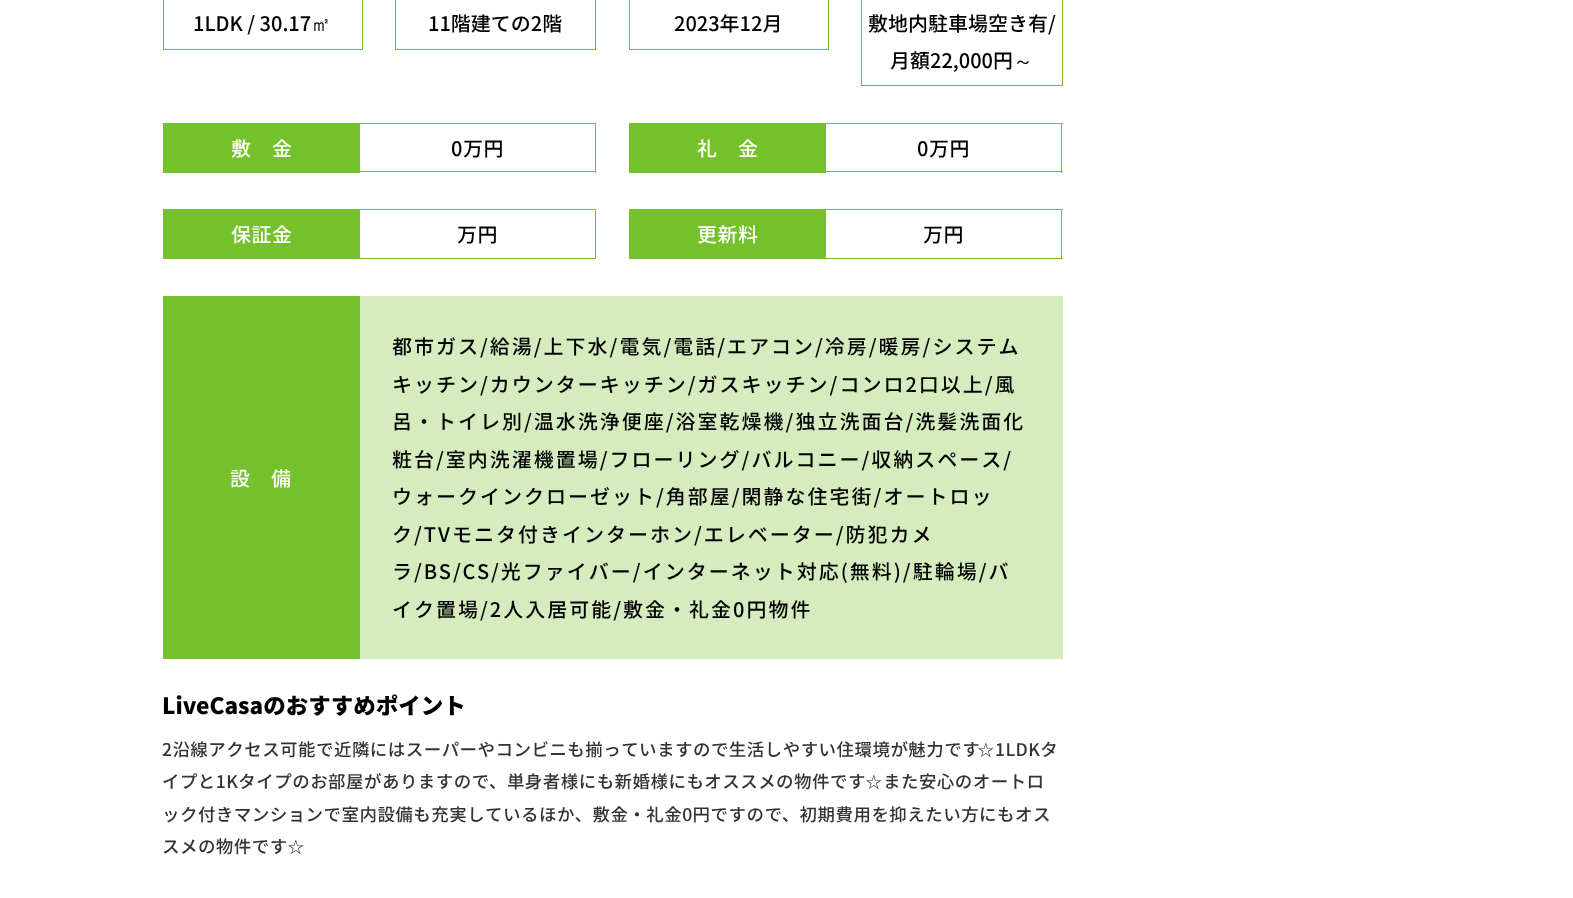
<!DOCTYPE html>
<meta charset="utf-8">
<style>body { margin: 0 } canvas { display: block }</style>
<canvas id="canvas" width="1573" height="898"></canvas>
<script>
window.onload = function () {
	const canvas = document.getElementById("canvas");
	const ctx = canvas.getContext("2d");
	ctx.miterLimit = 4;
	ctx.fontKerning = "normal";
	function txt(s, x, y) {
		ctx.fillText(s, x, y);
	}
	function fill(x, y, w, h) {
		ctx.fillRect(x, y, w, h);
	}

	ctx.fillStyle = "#FFFFFF";
	fill(0, 0, 1573, 898);
	ctx.strokeStyle = "#75C12B";
	ctx.strokeRect(163.5, -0.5, 199, 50);
	ctx.strokeRect(395.5, -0.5, 200, 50);
	ctx.strokeRect(629.5, -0.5, 199, 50);
	ctx.strokeRect(861.5, -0.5, 201, 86);
	ctx.fillStyle = "#75C12B";
	fill(163, 123, 433, 1);
	fill(595, 123, 1, 50);
	fill(360, 171, 236, 1);
	fill(163, 124, 197, 49);
	fill(629, 123, 434, 1);
	fill(1061, 123, 1, 50);
	fill(826, 171, 237, 1);
	fill(629, 124, 197, 49);
	fill(163, 209, 433, 1);
	fill(595, 209, 1, 50);
	fill(163, 258, 433, 1);
	fill(163, 210, 197, 48);
	fill(629, 209, 434, 1);
	fill(1061, 209, 1, 50);
	fill(629, 258, 434, 1);
	fill(629, 210, 197, 48);
	fill(163, 296, 197, 363);
	ctx.fillStyle = "#D5ECBF";
	fill(360, 296, 703, 363);
	ctx.font = "500 20px Noto Sans JP";
	ctx.fillStyle = "#000000";
	txt("1LDK / 30.17", 193, 31);
	ctx.font = "500 20px WenQuanYi Zen Hei";
	txt("㎡", 311, 31);
	ctx.font = "500 20px Noto Sans JP";
	txt("11階建ての2階", 428, 31);
	txt("2023年12月", 674, 31);
	txt("敷地内駐車場空き有/", 868, 31);
	txt("月額22,000円", 890, 68);
	ctx.font = "500 20px WenQuanYi Zen Hei";
	txt("～", 1013, 68);
	ctx.letterSpacing = "0.5px";
	ctx.font = "500 20px Noto Sans JP";
	ctx.fillStyle = "#FFFFFF";
	txt("敷　金", 231, 156);
	ctx.fillStyle = "#000000";
	txt("0万円", 451, 156);
	ctx.fillStyle = "#FFFFFF";
	txt("礼　金", 697, 156);
	ctx.fillStyle = "#000000";
	txt("0万円", 917, 156);
	ctx.fillStyle = "#FFFFFF";
	txt("保証金", 231, 242);
	ctx.fillStyle = "#000000";
	txt("万円", 457, 242);
	ctx.fillStyle = "#FFFFFF";
	txt("更新料", 697, 242);
	ctx.fillStyle = "#000000";
	txt("万円", 923, 242);
	ctx.fillStyle = "#FFFFFF";
	txt("設　備", 230, 486);
	ctx.letterSpacing = "2px";
	ctx.fillStyle = "#000000";
	txt("都市ガス/給湯/上下水/電気/電話/エアコン/冷房/暖房/システム", 392, 354);
	txt("キッチン/カウンターキッチン/ガスキッチン/コンロ2口以上/風", 392, 392);
	txt("呂・トイレ別/温水洗浄便座/浴室乾燥機/独立洗面台/洗髪洗面化", 392, 429);
	txt("粧台/室内洗濯機置場/フローリング/バルコニー/収納スペース/", 392, 467);
	txt("ウォークインクローゼット/角部屋/閑静な住宅街/オートロッ", 392, 504);
	txt("ク/TVモニタ付きインターホン/エレベーター/防犯カメ", 392, 542);
	txt("ラ/BS/CS/光ファイバー/インターネット対応(無料)/駐輪場/バ", 392, 579);
	txt("イク置場/2人入居可能/敷金・礼金0円物件", 392, 617);
	ctx.letterSpacing = "0px";
	ctx.font = "900 22.5px Noto Sans JP";
	txt("LiveCasaのおすすめポイント", 162, 714);
	ctx.letterSpacing = "0.45px";
	ctx.font = "500 17.5px Noto Sans JP";
	ctx.fillStyle = "#333333";
	txt("2沿線アクセス可能で近隣にはスーパーやコンビニも揃っていますので生活しやすい住環境が魅力です", 162, 756);
	ctx.font = "500 17.5px WenQuanYi Zen Hei";
	txt("☆", 977, 756);
	ctx.font = "500 17.5px Noto Sans JP";
	txt("1LDKタ", 995, 756);
	txt("イプと1Kタイプのお部屋がありますので、単身者様にも新婚様にもオススメの物件です", 162, 788);
	ctx.font = "500 17.5px WenQuanYi Zen Hei";
	txt("☆", 865, 788);
	ctx.font = "500 17.5px Noto Sans JP";
	txt("また安心のオートロ", 883, 788);
	txt("ック付きマンションで室内設備も充実しているほか、敷金・礼金0円ですので、初期費用を抑えたい方にもオス", 162, 821);
	txt("スメの物件です", 162, 853);
	ctx.font = "500 17.5px WenQuanYi Zen Hei";
	txt("☆", 287, 853);
};
</script>
